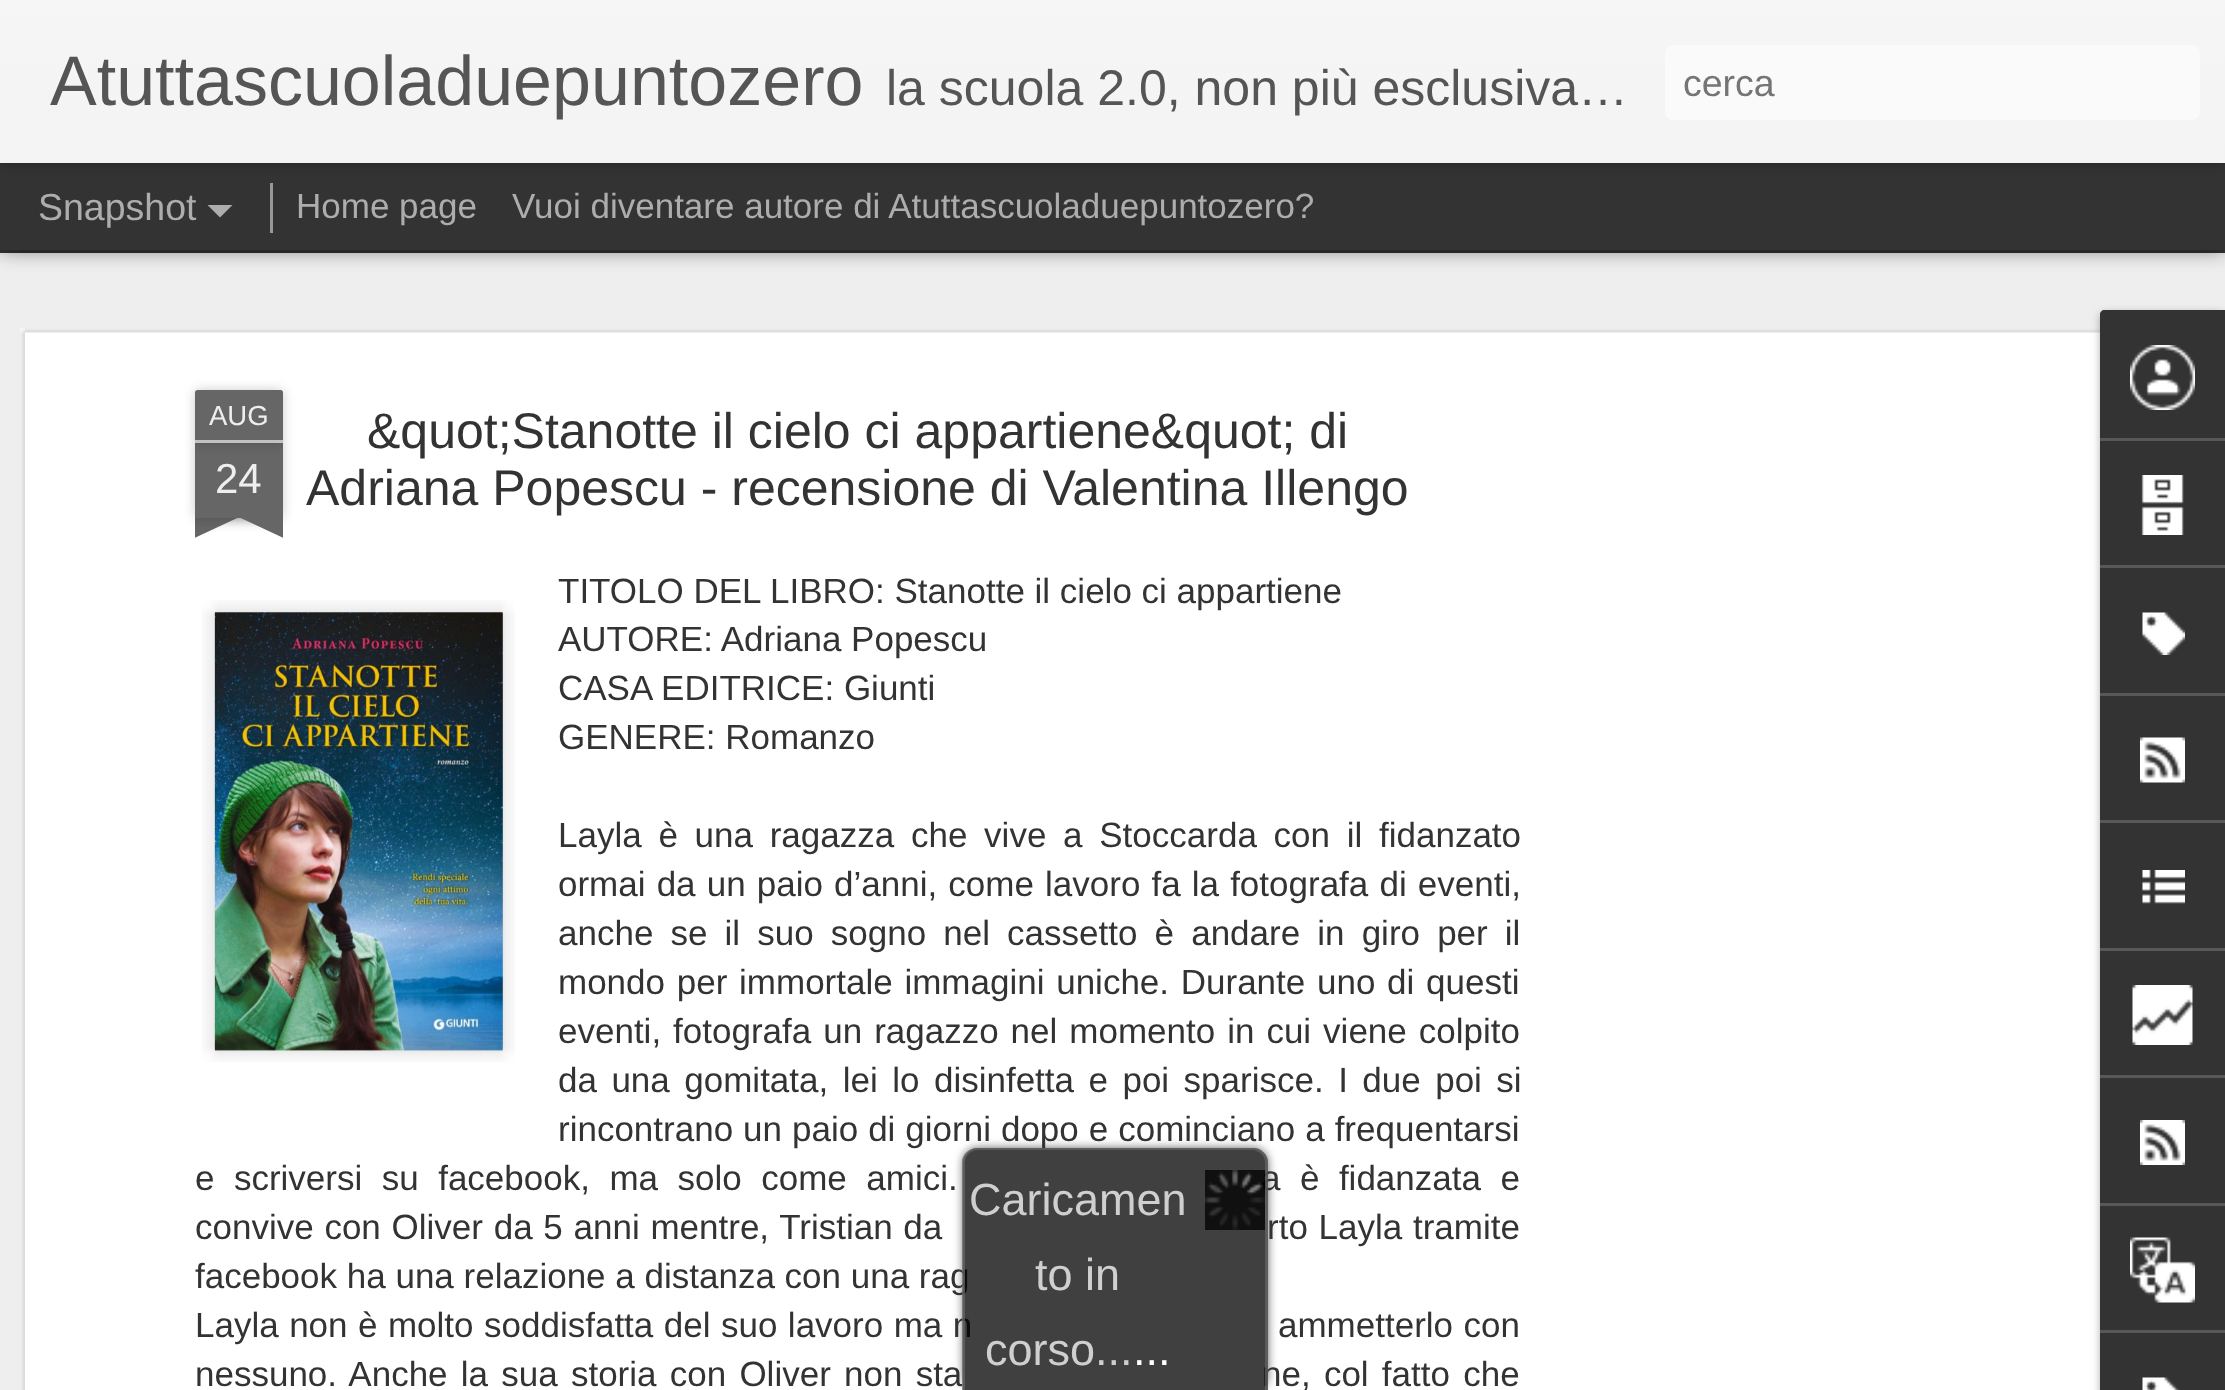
<!DOCTYPE html>
<meta charset="utf-8">
<style>body { margin: 0 } canvas { display: block }</style>
<canvas id="canvas" width="2225" height="1390"></canvas>
<img id="img1" src="img_01.png" hidden>
<img id="img2" src="img_02.png" hidden>
<img id="img3" src="img_03.png" hidden>
<img id="img4" src="img_04.png" hidden>
<img id="img5" src="img_05.png" hidden>
<img id="img6" src="img_06.png" hidden>
<img id="img7" src="img_07.png" hidden>
<img id="img8" src="img_08.png" hidden>
<img id="img9" src="img_09.png" hidden>
<img id="img10" src="img_10.png" hidden>
<img id="img11" src="img_11.png" hidden>
<img id="img12" src="img_12.png" hidden>
<img id="img13" src="img_13.png" hidden>
<script>
window.onload = function () {
	const canvas = document.getElementById("canvas");
	const ctx = canvas.getContext("2d");
	ctx.miterLimit = 4;
	ctx.fontKerning = "normal";
	function txt(s, x, y) {
		ctx.fillText(s, x, y);
	}
	function fill(x, y, w, h) {
		ctx.fillRect(x, y, w, h);
	}
	function round(x, y, w, h, r) {
		ctx.beginPath();
		ctx.roundRect(x, y, w, h, r);
		ctx.fill();
	}
	function img(id, x, y, w, h) {
		ctx.drawImage(document.getElementById(id), x, y, w, h);
	}
	let gradient;

	ctx.fillStyle = "#333333";
	fill(0, 0, 2225, 1390);
	ctx.fillStyle = "#EEEEEE";
	fill(0, 253, 2225, 1137);
	ctx.fillStyle = "rgba(0, 0, 0, 0.5)";
	ctx.filter = "blur(10px)";
	ctx.beginPath();
	ctx.rect(0, 163, 2225, 87);
	ctx.fill();
	ctx.filter = "none";
	ctx.fillStyle = "#333333";
	fill(0, 163, 2225, 87);
	ctx.fillStyle = "rgba(0, 0, 0, 0.3)";
	ctx.filter = "blur(6px)";
	ctx.beginPath();
	ctx.rect(0, 0, 2225, 163);
	ctx.fill();
	ctx.filter = "none";
	gradient = ctx.createLinearGradient(0, 0, 0, 163);
	gradient.addColorStop(0, "#F6F6F6");
	gradient.addColorStop(1, "#F3F3F3");
	ctx.fillStyle = gradient;
	fill(0, 0, 2225, 163);
	ctx.fillStyle = "#FAFAFA";
	round(1665, 45, 535, 75, 8);
	ctx.fillStyle = "#ADADAD";
	ctx.beginPath();
	ctx.moveTo(207.5, 205);
	ctx.lineTo(232.5, 205);
	ctx.lineTo(220, 217.5);
	ctx.closePath();
	ctx.fill();
	ctx.fillStyle = "#999999";
	fill(270, 183, 3, 50);
	ctx.fillStyle = "#FFFFFF";
	fill(20, 328, 2080, 1062);
	img("img1", 20, 328, 2080, 1062);
	ctx.fillStyle = "rgba(0, 0, 0, 0.2)";
	ctx.filter = "blur(6px)";
	ctx.beginPath();
	ctx.rect(195, 443, 88, 75);
	ctx.fill();
	ctx.filter = "none";
	ctx.fillStyle = "#666666";
	fill(195, 443, 88, 75);
	ctx.fillStyle = "rgba(0, 0, 0, 0.2)";
	ctx.filter = "blur(6px)";
	ctx.beginPath();
	ctx.roundRect(195, 390, 88, 53, 2.5);
	ctx.fill();
	ctx.filter = "none";
	ctx.fillStyle = "#666666";
	ctx.beginPath();
	ctx.roundRect(195, 390, 88, 53, [2.5, 2.5, 0, 0]);
	ctx.fill();
	ctx.fillStyle = "#C2C2C2";
	fill(195, 440, 88, 3);
	ctx.save();
	ctx.beginPath();
	ctx.rect(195, 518, 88, 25);
	ctx.clip();
	ctx.fillStyle = "rgba(0, 0, 0, 0.2)";
	ctx.filter = "blur(6.5px)";
	ctx.beginPath();
	ctx.rect(173, 493, 125, 25);
	ctx.fill();
	ctx.filter = "none";
	ctx.restore();
	ctx.save();
	ctx.beginPath();
	ctx.rect(195, 518, 88, 25);
	ctx.clip();
	ctx.fillStyle = "#666666";
	ctx.beginPath();
	ctx.moveTo(173, 520);
	ctx.lineTo(286, 467);
	ctx.lineTo(297, 490);
	ctx.lineTo(184, 543);
	ctx.closePath();
	ctx.fill();
	ctx.restore();
	ctx.save();
	ctx.beginPath();
	ctx.rect(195, 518, 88, 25);
	ctx.clip();
	ctx.fillStyle = "rgba(0, 0, 0, 0.2)";
	ctx.filter = "blur(6.5px)";
	ctx.beginPath();
	ctx.rect(180, 493, 125, 25);
	ctx.fill();
	ctx.filter = "none";
	ctx.restore();
	ctx.save();
	ctx.beginPath();
	ctx.rect(195, 518, 88, 25);
	ctx.clip();
	ctx.fillStyle = "#666666";
	ctx.beginPath();
	ctx.moveTo(191, 467);
	ctx.lineTo(304, 520);
	ctx.lineTo(294, 543);
	ctx.lineTo(181, 490);
	ctx.closePath();
	ctx.fill();
	ctx.restore();
	img("img2", 202, 600, 313, 462);
	img("img3", 214, 612, 289, 439);
	ctx.fillStyle = "rgba(0, 0, 0, 0.3)";
	ctx.filter = "blur(4px)";
	ctx.beginPath();
	ctx.roundRect(2100, 313, 125, 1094, 5);
	ctx.fill();
	ctx.filter = "none";
	ctx.fillStyle = "#333333";
	ctx.beginPath();
	ctx.moveTo(2105, 310);
	ctx.lineTo(2225, 310);
	ctx.lineTo(2225, 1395);
	ctx.lineTo(2105, 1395);
	ctx.bezierCurveTo(2102, 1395, 2100, 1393, 2100, 1390);
	ctx.lineTo(2100, 315);
	ctx.bezierCurveTo(2100, 312, 2102, 310, 2105, 310);
	ctx.closePath();
	ctx.fill();
	ctx.beginPath();
	ctx.roundRect(2100, 310, 125, 128, [5, 0, 0, 0]);
	ctx.fill();
	img("img4", 2130, 345, 65, 65);
	ctx.fillStyle = "#585858";
	fill(2100, 438, 125, 3);
	img("img5", 2141, 475, 43, 60);
	fill(2100, 565, 125, 3);
	img("img6", 2142, 612, 43, 43);
	fill(2100, 693, 125, 3);
	img("img7", 2140, 737, 45, 46);
	fill(2100, 820, 125, 3);
	img("img8", 2142, 870, 43, 34);
	fill(2100, 948, 125, 3);
	img("img9", 2132, 985, 61, 60);
	fill(2100, 1075, 125, 3);
	img("img10", 2140, 1120, 45, 45);
	fill(2100, 1203, 125, 3);
	img("img11", 2130, 1237, 65, 66);
	fill(2100, 1330, 125, 3);
	img("img12", 2142, 1377, 38, 13);
	ctx.save();
	ctx.beginPath();
	ctx.moveTo(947, 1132);
	ctx.lineTo(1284, 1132);
	ctx.lineTo(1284, 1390);
	ctx.lineTo(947, 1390);
	ctx.closePath();
	ctx.moveTo(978, 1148);
	ctx.lineTo(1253, 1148);
	ctx.bezierCurveTo(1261.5, 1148, 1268, 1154.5, 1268, 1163);
	ctx.lineTo(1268, 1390);
	ctx.lineTo(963, 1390);
	ctx.lineTo(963, 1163);
	ctx.bezierCurveTo(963, 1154.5, 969.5, 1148, 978, 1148);
	ctx.closePath();
	ctx.clip("evenodd");
	ctx.fillStyle = "rgba(51, 51, 51, 0.75)";
	ctx.filter = "blur(5px)";
	ctx.beginPath();
	ctx.roundRect(963, 1148, 305, 242, 15);
	ctx.fill();
	ctx.filter = "none";
	ctx.restore();
	ctx.font = "70px Liberation Sans";
	ctx.fillStyle = "#555555";
	txt("Atuttascuoladuepuntozero", 50, 105);
	ctx.font = "50px Liberation Sans";
	txt("la scuola 2.0, non più esclusiva…", 886, 105);
	ctx.font = "37.5px Liberation Sans";
	ctx.fillStyle = "#757575";
	txt("cerca", 1683, 96);
	ctx.fillStyle = "#ADADAD";
	txt("Snapshot", 38, 220);
	ctx.font = "35px Liberation Sans";
	txt("Home page", 296, 218);
	txt("Vuoi diventare autore di Atuttascuoladuepuntozero?", 512, 218);
	ctx.font = "27.5px Liberation Sans";
	ctx.fillStyle = "#EEEEEE";
	txt("AUG", 209, 425);
	ctx.font = "42px Liberation Sans";
	txt("24", 215, 493);
	ctx.font = "50px Liberation Sans";
	ctx.fillStyle = "#333333";
	txt("&quot;Stanotte il cielo ci appartiene&quot; di", 367, 448);
	txt("Adriana Popescu - recensione di Valentina Illengo", 306, 505);
	ctx.font = "35px Liberation Sans";
	txt("TITOLO DEL LIBRO: Stanotte il cielo ci appartiene", 558, 603);
	txt("AUTORE: Adriana Popescu", 558, 651);
	txt("CASA EDITRICE: Giunti", 558, 700);
	txt("GENERE: Romanzo", 558, 749);
	ctx.wordSpacing = "7px";
	txt("Layla è una ragazza che vive a Stoccarda con il fidanzato", 558, 847);
	ctx.wordSpacing = "1.4px";
	txt("ormai da un paio d’anni, come lavoro fa la fotografa di eventi,", 558, 896);
	ctx.wordSpacing = "7.4px";
	txt("anche se il suo sogno nel cassetto è andare in giro per il", 558, 945);
	ctx.wordSpacing = "2px";
	txt("mondo per immortale immagini uniche. Durante uno di questi", 558, 994);
	ctx.wordSpacing = "2.25px";
	txt("eventi, fotografa un ragazzo nel momento in cui viene colpito", 558, 1043);
	ctx.wordSpacing = "4.75px";
	txt("da una gomitata, lei lo disinfetta e poi sparisce. I due poi si", 558, 1092);
	ctx.wordSpacing = "0.25px";
	txt("rincontrano un paio di giorni dopo e cominciano a frequentarsi", 558, 1141);
	ctx.wordSpacing = "9.75px";
	txt("e scriversi su facebook, ma solo come amici.", 195, 1190);
	txt("a è fidanzata e", 1261, 1190);
	ctx.wordSpacing = "1px";
	txt("convive con Oliver da 5 anni mentre, Tristian da", 195, 1239);
	txt("rto Layla tramite", 1267, 1239);
	ctx.wordSpacing = "0px";
	txt("facebook ha una relazione a distanza con una rag", 195, 1288);
	ctx.wordSpacing = "0.75px";
	txt("Layla non è molto soddisfatta del suo lavoro ma n", 195, 1337);
	txt("ammetterlo con", 1278, 1337);
	ctx.wordSpacing = "3.5px";
	txt("nessuno. Anche la sua storia con Oliver non sta", 195, 1386);
	txt("ne, col fatto che", 1262, 1386);
	ctx.fillStyle = "rgba(0, 0, 0, 0.75)";
	ctx.beginPath();
	ctx.roundRect(963, 1148, 305, 242, [15, 15, 0, 0]);
	ctx.fill();
	ctx.fillStyle = "rgba(102, 102, 102, 0.75)";
	ctx.beginPath();
	ctx.moveTo(978, 1148);
	ctx.lineTo(1252, 1148);
	ctx.bezierCurveTo(1261, 1148, 1268, 1154, 1268, 1162);
	ctx.lineTo(1268, 1390);
	ctx.lineTo(962, 1390);
	ctx.lineTo(962, 1162);
	ctx.bezierCurveTo(962, 1154, 969, 1148, 978, 1148);
	ctx.closePath();
	ctx.moveTo(978, 1150);
	ctx.lineTo(1252, 1150);
	ctx.bezierCurveTo(1259, 1150, 1265, 1156, 1265, 1162);
	ctx.lineTo(1265, 1390);
	ctx.lineTo(965, 1390);
	ctx.lineTo(965, 1162);
	ctx.bezierCurveTo(965, 1156, 971, 1150, 978, 1150);
	ctx.closePath();
	ctx.fill("evenodd");
	img("img13", 1205, 1170, 60, 60);
	ctx.wordSpacing = "0px";
	ctx.font = "45px Liberation Sans";
	ctx.fillStyle = "#CFCFCF";
	txt("Caricamen", 969, 1215);
	txt("to in", 1035, 1290);
	txt("corso...", 985, 1365);
	ctx.fillStyle = "#FFFFFF";
	txt("...", 1133, 1365);
};
</script>
